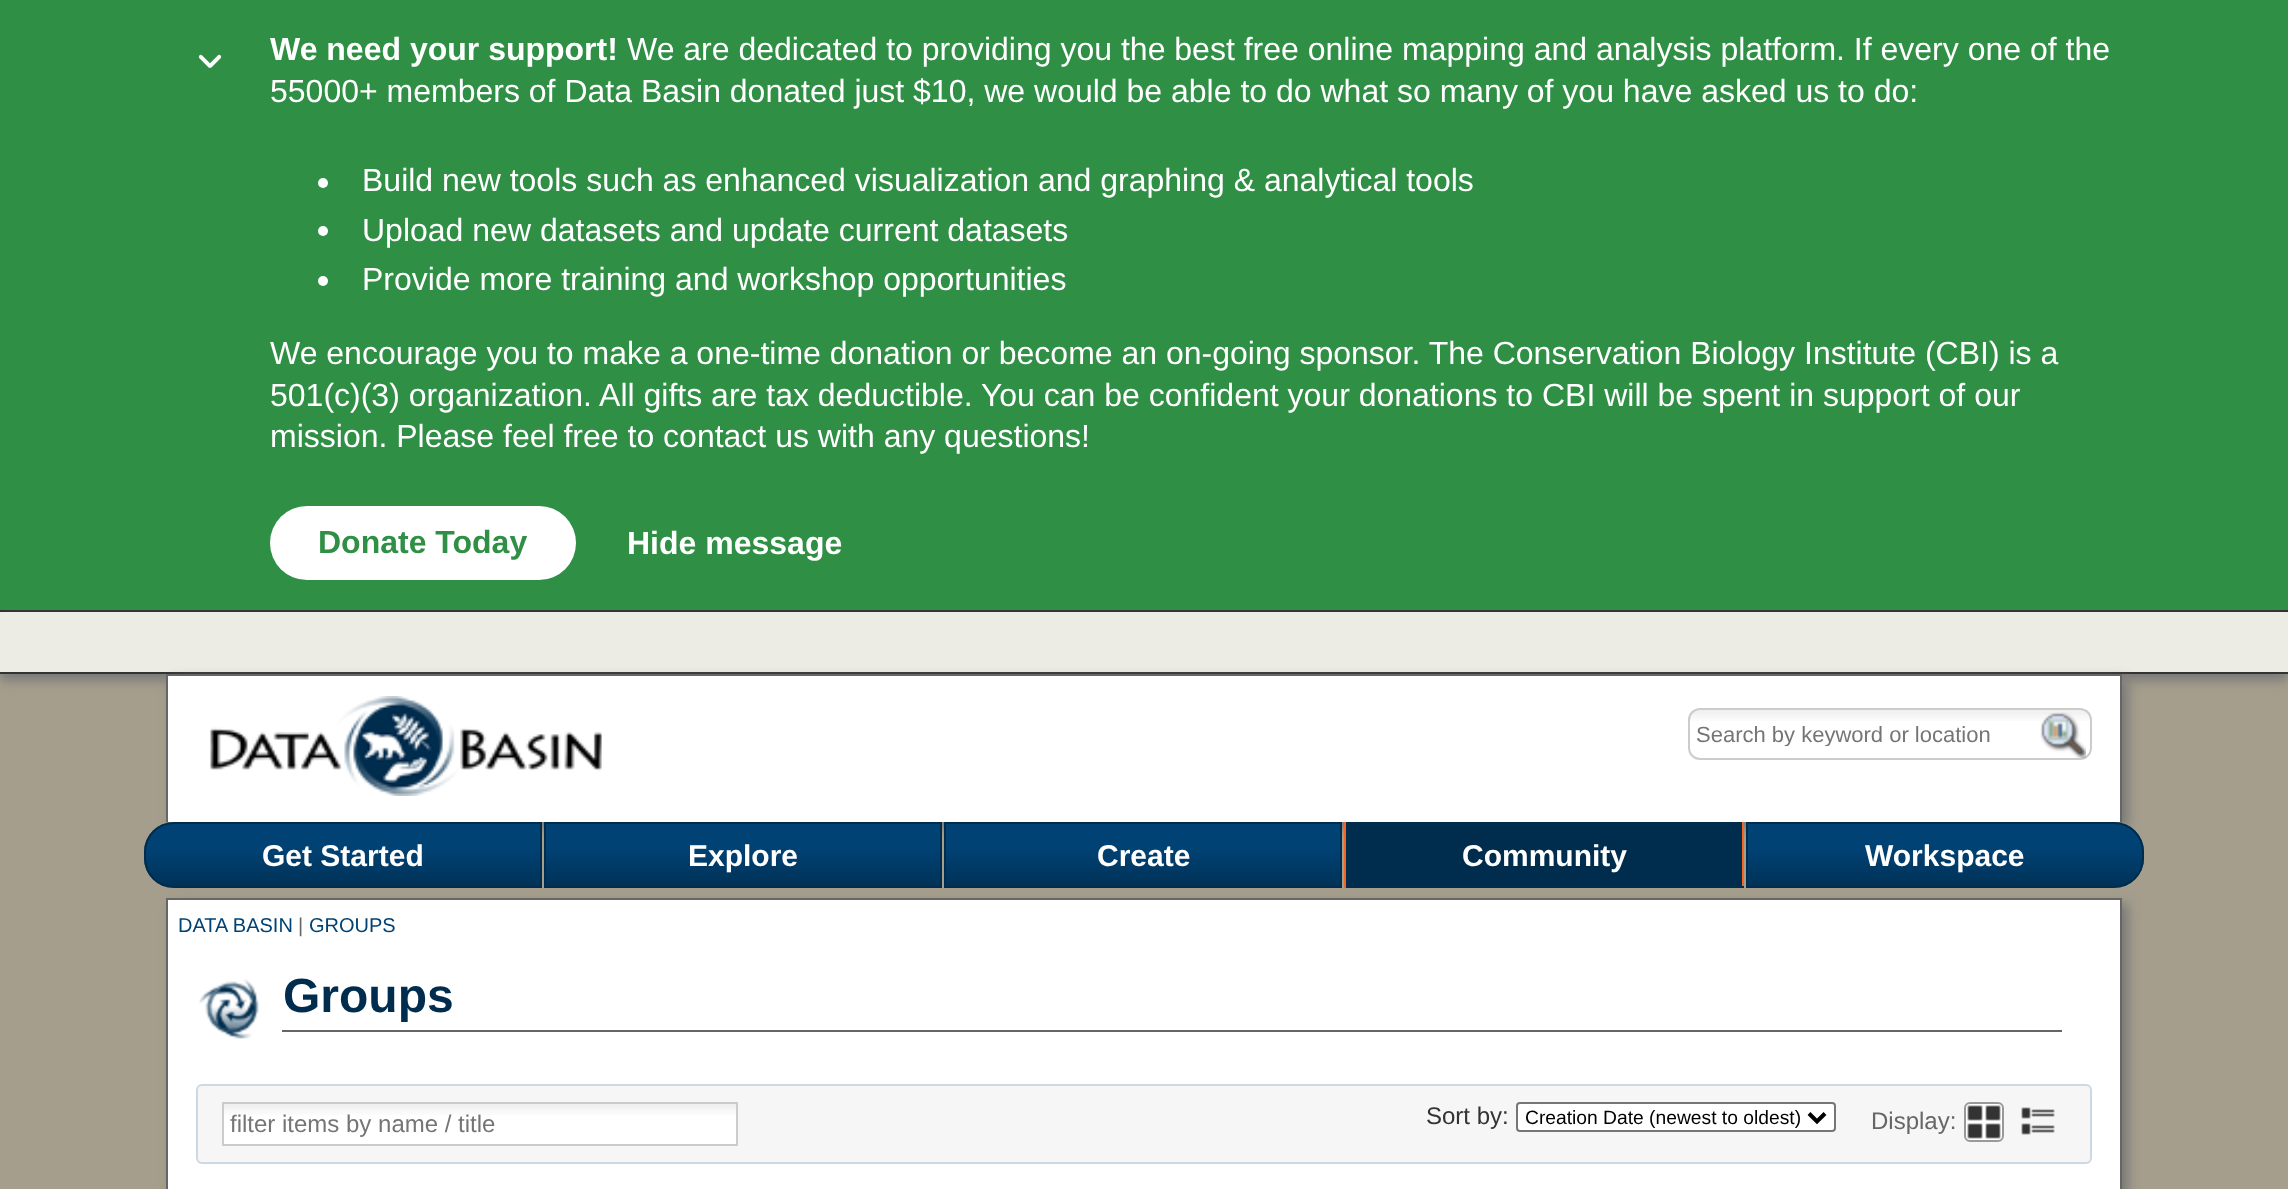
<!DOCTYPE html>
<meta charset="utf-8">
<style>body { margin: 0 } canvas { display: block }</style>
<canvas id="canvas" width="2288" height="1189"></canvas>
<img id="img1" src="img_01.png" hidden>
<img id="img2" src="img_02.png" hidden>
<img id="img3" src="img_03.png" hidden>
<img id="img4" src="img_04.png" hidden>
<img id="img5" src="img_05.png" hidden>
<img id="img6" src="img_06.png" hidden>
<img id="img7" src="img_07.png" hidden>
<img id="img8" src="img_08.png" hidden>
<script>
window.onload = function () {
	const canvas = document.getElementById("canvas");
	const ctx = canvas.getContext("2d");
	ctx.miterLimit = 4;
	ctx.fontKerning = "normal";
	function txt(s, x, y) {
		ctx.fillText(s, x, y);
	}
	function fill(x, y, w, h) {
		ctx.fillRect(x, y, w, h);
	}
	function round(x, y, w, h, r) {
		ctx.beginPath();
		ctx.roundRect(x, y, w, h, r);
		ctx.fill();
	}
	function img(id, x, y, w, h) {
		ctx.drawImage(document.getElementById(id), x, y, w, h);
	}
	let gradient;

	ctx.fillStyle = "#A59E8D";
	fill(0, 0, 2288, 1189);
	ctx.fillStyle = "#2F8F45";
	fill(0, 0, 2288, 610);
	ctx.fillStyle = "#2C2C2C";
	fill(0, 610, 2288, 2);
	img("img1", 198, 54, 24, 14);
	ctx.fillStyle = "#FFFFFF";
	ctx.beginPath();
	ctx.arc(323, 183, 5, 0, Math.PI * 2);
	ctx.fill();
	ctx.beginPath();
	ctx.arc(323, 231, 5, 0, Math.PI * 2);
	ctx.fill();
	ctx.beginPath();
	ctx.arc(323, 281, 5, 0, Math.PI * 2);
	ctx.fill();
	round(270, 506, 306, 74, 37);
	ctx.fillStyle = "#777777";
	ctx.filter = "blur(6px)";
	ctx.beginPath();
	ctx.rect(0, 618, 2288, 62);
	ctx.fill();
	ctx.filter = "none";
	ctx.fillStyle = "#ECECE4";
	fill(0, 612, 2288, 60);
	ctx.fillStyle = "#333333";
	fill(0, 672, 2288, 2);
	ctx.fillStyle = "#777777";
	ctx.filter = "blur(6px)";
	ctx.beginPath();
	ctx.rect(172, 680, 1956, 148);
	ctx.fill();
	ctx.filter = "none";
	ctx.fillStyle = "#FFFFFF";
	fill(168, 676, 1952, 146);
	ctx.fillStyle = "#666666";
	fill(166, 674, 1956, 2);
	fill(2120, 674, 2, 148);
	fill(166, 674, 2, 148);
	img("img2", 210, 696, 392, 100);
	img("img3", 1688, 710, 404, 11);
	ctx.beginPath();
	ctx.roundRect(1689, 709, 402, 50, 11);
	ctx.strokeStyle = "#CCCCCC";
	ctx.lineWidth = 2;
	ctx.stroke();
	img("img4", 2040, 712, 46, 46);
	ctx.fillStyle = "#777777";
	ctx.filter = "blur(6px)";
	ctx.beginPath();
	ctx.rect(172, 904, 1956, 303);
	ctx.fill();
	ctx.filter = "none";
	ctx.save();
	ctx.beginPath();
	ctx.roundRect(144, 822, 398, 66, [30, 0, 0, 30]);
	ctx.clip();
	gradient = ctx.createLinearGradient(343, 824, 343, 898);
	gradient.addColorStop(0.33, "#004274");
	gradient.addColorStop(1, "#002D4E");
	ctx.fillStyle = gradient;
	fill(144, 824, 396, 62);
	ctx.restore();
	ctx.beginPath();
	ctx.roundRect(145, 823, 396, 64, [29, 0, 0, 29]);
	ctx.strokeStyle = "#002D4E";
	ctx.stroke();
	gradient = ctx.createLinearGradient(743, 824, 743, 898);
	gradient.addColorStop(0.33, "#004274");
	gradient.addColorStop(1, "#002D4E");
	ctx.fillStyle = gradient;
	fill(546, 824, 394, 62);
	ctx.strokeRect(545, 823, 396, 64);
	gradient = ctx.createLinearGradient(1143, 824, 1143, 898);
	gradient.addColorStop(0.33, "#004274");
	gradient.addColorStop(1, "#002D4E");
	ctx.fillStyle = gradient;
	fill(946, 824, 394, 62);
	ctx.strokeRect(945, 823, 396, 64);
	ctx.fillStyle = "#002D4E";
	fill(1346, 822, 396, 64);
	ctx.fillStyle = "#F26522";
	fill(1742, 822, 2, 66);
	ctx.fillStyle = "#002D4E";
	fill(1344, 886, 400, 2);
	ctx.fillStyle = "#F26522";
	fill(1344, 822, 2, 66);
	ctx.save();
	ctx.beginPath();
	ctx.roundRect(1746, 822, 398, 66, [0, 30, 30, 0]);
	ctx.clip();
	gradient = ctx.createLinearGradient(1945, 824, 1945, 898);
	gradient.addColorStop(0.33, "#004274");
	gradient.addColorStop(1, "#002D4E");
	ctx.fillStyle = gradient;
	fill(1748, 824, 396, 62);
	ctx.restore();
	ctx.beginPath();
	ctx.roundRect(1747, 823, 396, 64, [0, 29, 29, 0]);
	ctx.stroke();
	ctx.fillStyle = "#FFFFFF";
	ctx.beginPath();
	ctx.rect(167, 899, 1954, 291);
	ctx.fill();
	ctx.strokeStyle = "#666666";
	ctx.stroke();
	img("img5", 199, 979, 60, 60);
	ctx.fillStyle = "#666666";
	fill(282, 1030, 1780, 2);
	ctx.fillStyle = "#F6F6F6";
	ctx.beginPath();
	ctx.roundRect(197, 1085, 1894, 78, 5);
	ctx.fill();
	ctx.strokeStyle = "#CCD8E3";
	ctx.stroke();
	ctx.fillStyle = "#FFFFFF";
	fill(224, 1105, 512, 39);
	img("img6", 224, 1104, 512, 11);
	ctx.strokeStyle = "#CCCCCC";
	ctx.strokeRect(223, 1103, 514, 42);
	ctx.beginPath();
	ctx.roundRect(1517, 1103, 318, 28, 3);
	ctx.fill();
	ctx.strokeStyle = "#767676";
	ctx.stroke();
	ctx.beginPath();
	ctx.moveTo(1809, 1113.5);
	ctx.lineTo(1817, 1121.5);
	ctx.lineTo(1825, 1113.5);
	ctx.strokeStyle = "#000000";
	ctx.lineWidth = 4;
	ctx.stroke();
	round(1964, 1102, 40, 40, 6);
	img("img7", 1967, 1105, 34, 34);
	ctx.beginPath();
	ctx.roundRect(1965, 1103, 38, 38, 5);
	ctx.strokeStyle = "#999999";
	ctx.lineWidth = 2;
	ctx.stroke();
	img("img8", 2021, 1107, 34, 28);
	ctx.font = "bold 32px Liberation Sans";
	txt("We need your support!", 270, 60);
	ctx.font = "32px Liberation Sans";
	txt("We are dedicated to providing you the best free online mapping and analysis platform. If every one of the", 627, 60);
	txt("55000+ members of Data Basin donated just $10, we would be able to do what so many of you have asked us to do:", 270, 102);
	txt("Build new tools such as enhanced visualization and graphing & analytical tools", 362, 191);
	txt("Upload new datasets and update current datasets", 362, 241);
	txt("Provide more training and workshop opportunities", 362, 290);
	txt("We encourage you to make a one-time donation or become an on-going sponsor. The Conservation Biology Institute (CBI) is a", 270, 364);
	txt("501(c)(3) organization. All gifts are tax deductible. You can be confident your donations to CBI will be spent in support of our", 270, 406);
	txt("mission. Please feel free to contact us with any questions!", 270, 447);
	ctx.font = "bold 32px Liberation Sans";
	ctx.fillStyle = "#2F8F45";
	txt("Donate Today", 318, 553);
	ctx.fillStyle = "#FFFFFF";
	txt("Hide message", 627, 554);
	ctx.save();
	ctx.beginPath();
	ctx.rect(1696, 722, 336, 24);
	ctx.clip();
	ctx.font = "22px Liberation Sans";
	ctx.fillStyle = "#757575";
	txt("Search by keyword or location", 1696, 742);
	ctx.restore();
	ctx.font = "bold 30px Liberation Sans";
	txt("Get Started", 262, 866);
	txt("Explore", 688, 866);
	txt("Create", 1097, 866);
	txt("Community", 1462, 866);
	txt("Workspace", 1865, 866);
	ctx.font = "20px Liberation Sans";
	ctx.fillStyle = "#004274";
	txt("DATA BASIN", 178, 932);
	ctx.fillStyle = "#666666";
	txt("|", 298, 932);
	ctx.fillStyle = "#004274";
	txt("GROUPS", 309, 932);
	ctx.font = "bold 48px Liberation Sans";
	ctx.fillStyle = "#002D4E";
	txt("Groups", 283, 1012);
	ctx.font = "24px Liberation Sans";
	ctx.fillStyle = "#757575";
	txt("filter items by name / title", 230, 1132);
	ctx.fillStyle = "#333333";
	txt("Sort by:", 1426, 1124);
	ctx.font = "19.25px Liberation Sans";
	ctx.fillStyle = "#000000";
	txt("Creation Date (newest to oldest)", 1525, 1124);
	ctx.font = "24px Liberation Sans";
	ctx.fillStyle = "#666666";
	txt("Display:", 1871, 1129);
};
</script>
